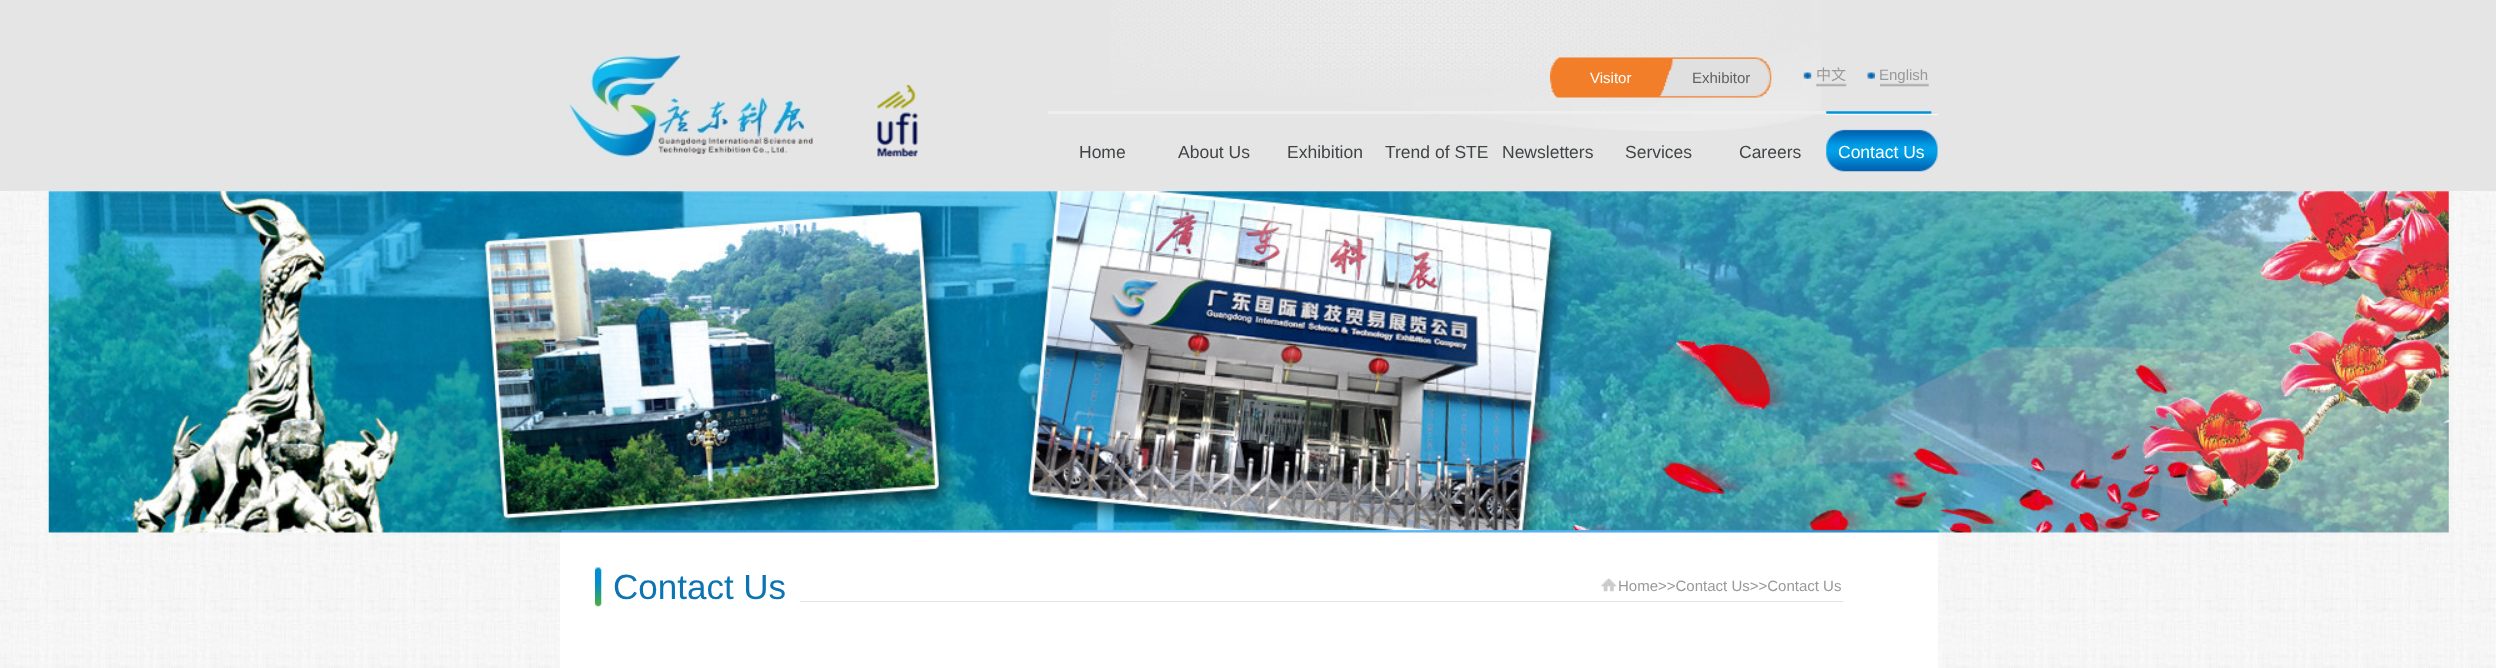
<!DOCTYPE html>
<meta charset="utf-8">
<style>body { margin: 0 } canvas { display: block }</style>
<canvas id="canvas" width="2496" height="668"></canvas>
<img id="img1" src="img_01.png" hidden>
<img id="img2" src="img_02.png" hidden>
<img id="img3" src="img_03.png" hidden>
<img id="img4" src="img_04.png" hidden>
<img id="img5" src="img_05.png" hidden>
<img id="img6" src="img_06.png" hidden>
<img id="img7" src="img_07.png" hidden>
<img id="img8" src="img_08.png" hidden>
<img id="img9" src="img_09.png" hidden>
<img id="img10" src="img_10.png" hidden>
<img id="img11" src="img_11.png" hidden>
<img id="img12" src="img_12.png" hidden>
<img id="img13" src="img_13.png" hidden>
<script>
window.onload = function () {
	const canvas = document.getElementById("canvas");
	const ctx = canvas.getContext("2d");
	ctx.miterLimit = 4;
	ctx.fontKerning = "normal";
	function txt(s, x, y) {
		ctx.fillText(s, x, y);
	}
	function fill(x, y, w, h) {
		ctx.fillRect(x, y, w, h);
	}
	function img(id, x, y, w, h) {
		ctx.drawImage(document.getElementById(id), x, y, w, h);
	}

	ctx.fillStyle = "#FFFFFF";
	fill(0, 0, 2496, 668);
	img("img1", 0, 191, 2496, 477);
	ctx.fillStyle = "#E5E5E5";
	fill(0, 0, 2496, 191);
	img("img2", 1110, 0, 711, 131);
	img("img3", 569, 54, 244, 104);
	img("img4", 877, 85, 41, 72);
	img("img5", 1550, 57, 222, 41);
	img("img6", 1803, 72, 9, 7);
	img("img7", 1816, 83, 31, 4);
	img("img8", 1867, 72, 8, 7);
	img("img9", 1880, 83, 49, 4);
	ctx.fillStyle = "#EEEEEE";
	fill(1048, 111, 890, 3);
	img("img10", 1826, 111, 112, 61);
	img("img11", 48, 191, 2401, 342);
	ctx.fillStyle = "#FFFFFF";
	fill(560, 533, 1378, 135);
	img("img12", 595, 567, 7, 40);
	ctx.fillStyle = "#E2E2E2";
	fill(800, 601, 1043, 1);
	img("img13", 1601, 578, 16, 14);
	ctx.font = "15px Liberation Sans";
	ctx.fillStyle = "#FFFFFF";
	txt("Visitor", 1590, 83);
	ctx.fillStyle = "#616161";
	txt("Exhibitor", 1692, 83);
	ctx.font = "15px Noto Sans CJK SC";
	ctx.fillStyle = "#999999";
	txt("中文", 1816, 80);
	ctx.font = "15px Liberation Sans";
	txt("English", 1879, 80);
	ctx.font = "17.5px Liberation Sans";
	ctx.fillStyle = "#414446";
	txt("Home", 1079, 158);
	txt("About Us", 1178, 158);
	txt("Exhibition", 1287, 158);
	txt("Trend of STE", 1385, 158);
	txt("Newsletters", 1502, 158);
	txt("Services", 1625, 158);
	txt("Careers", 1739, 158);
	ctx.fillStyle = "#FFFFFF";
	txt("Contact Us", 1838, 158);
	ctx.font = "35px Liberation Sans";
	ctx.fillStyle = "#0C74B3";
	txt("Contact Us", 613, 599);
	ctx.font = "15px Liberation Sans";
	ctx.fillStyle = "#999999";
	txt("Home>>Contact Us>>Contact Us", 1618, 591);
};
</script>
